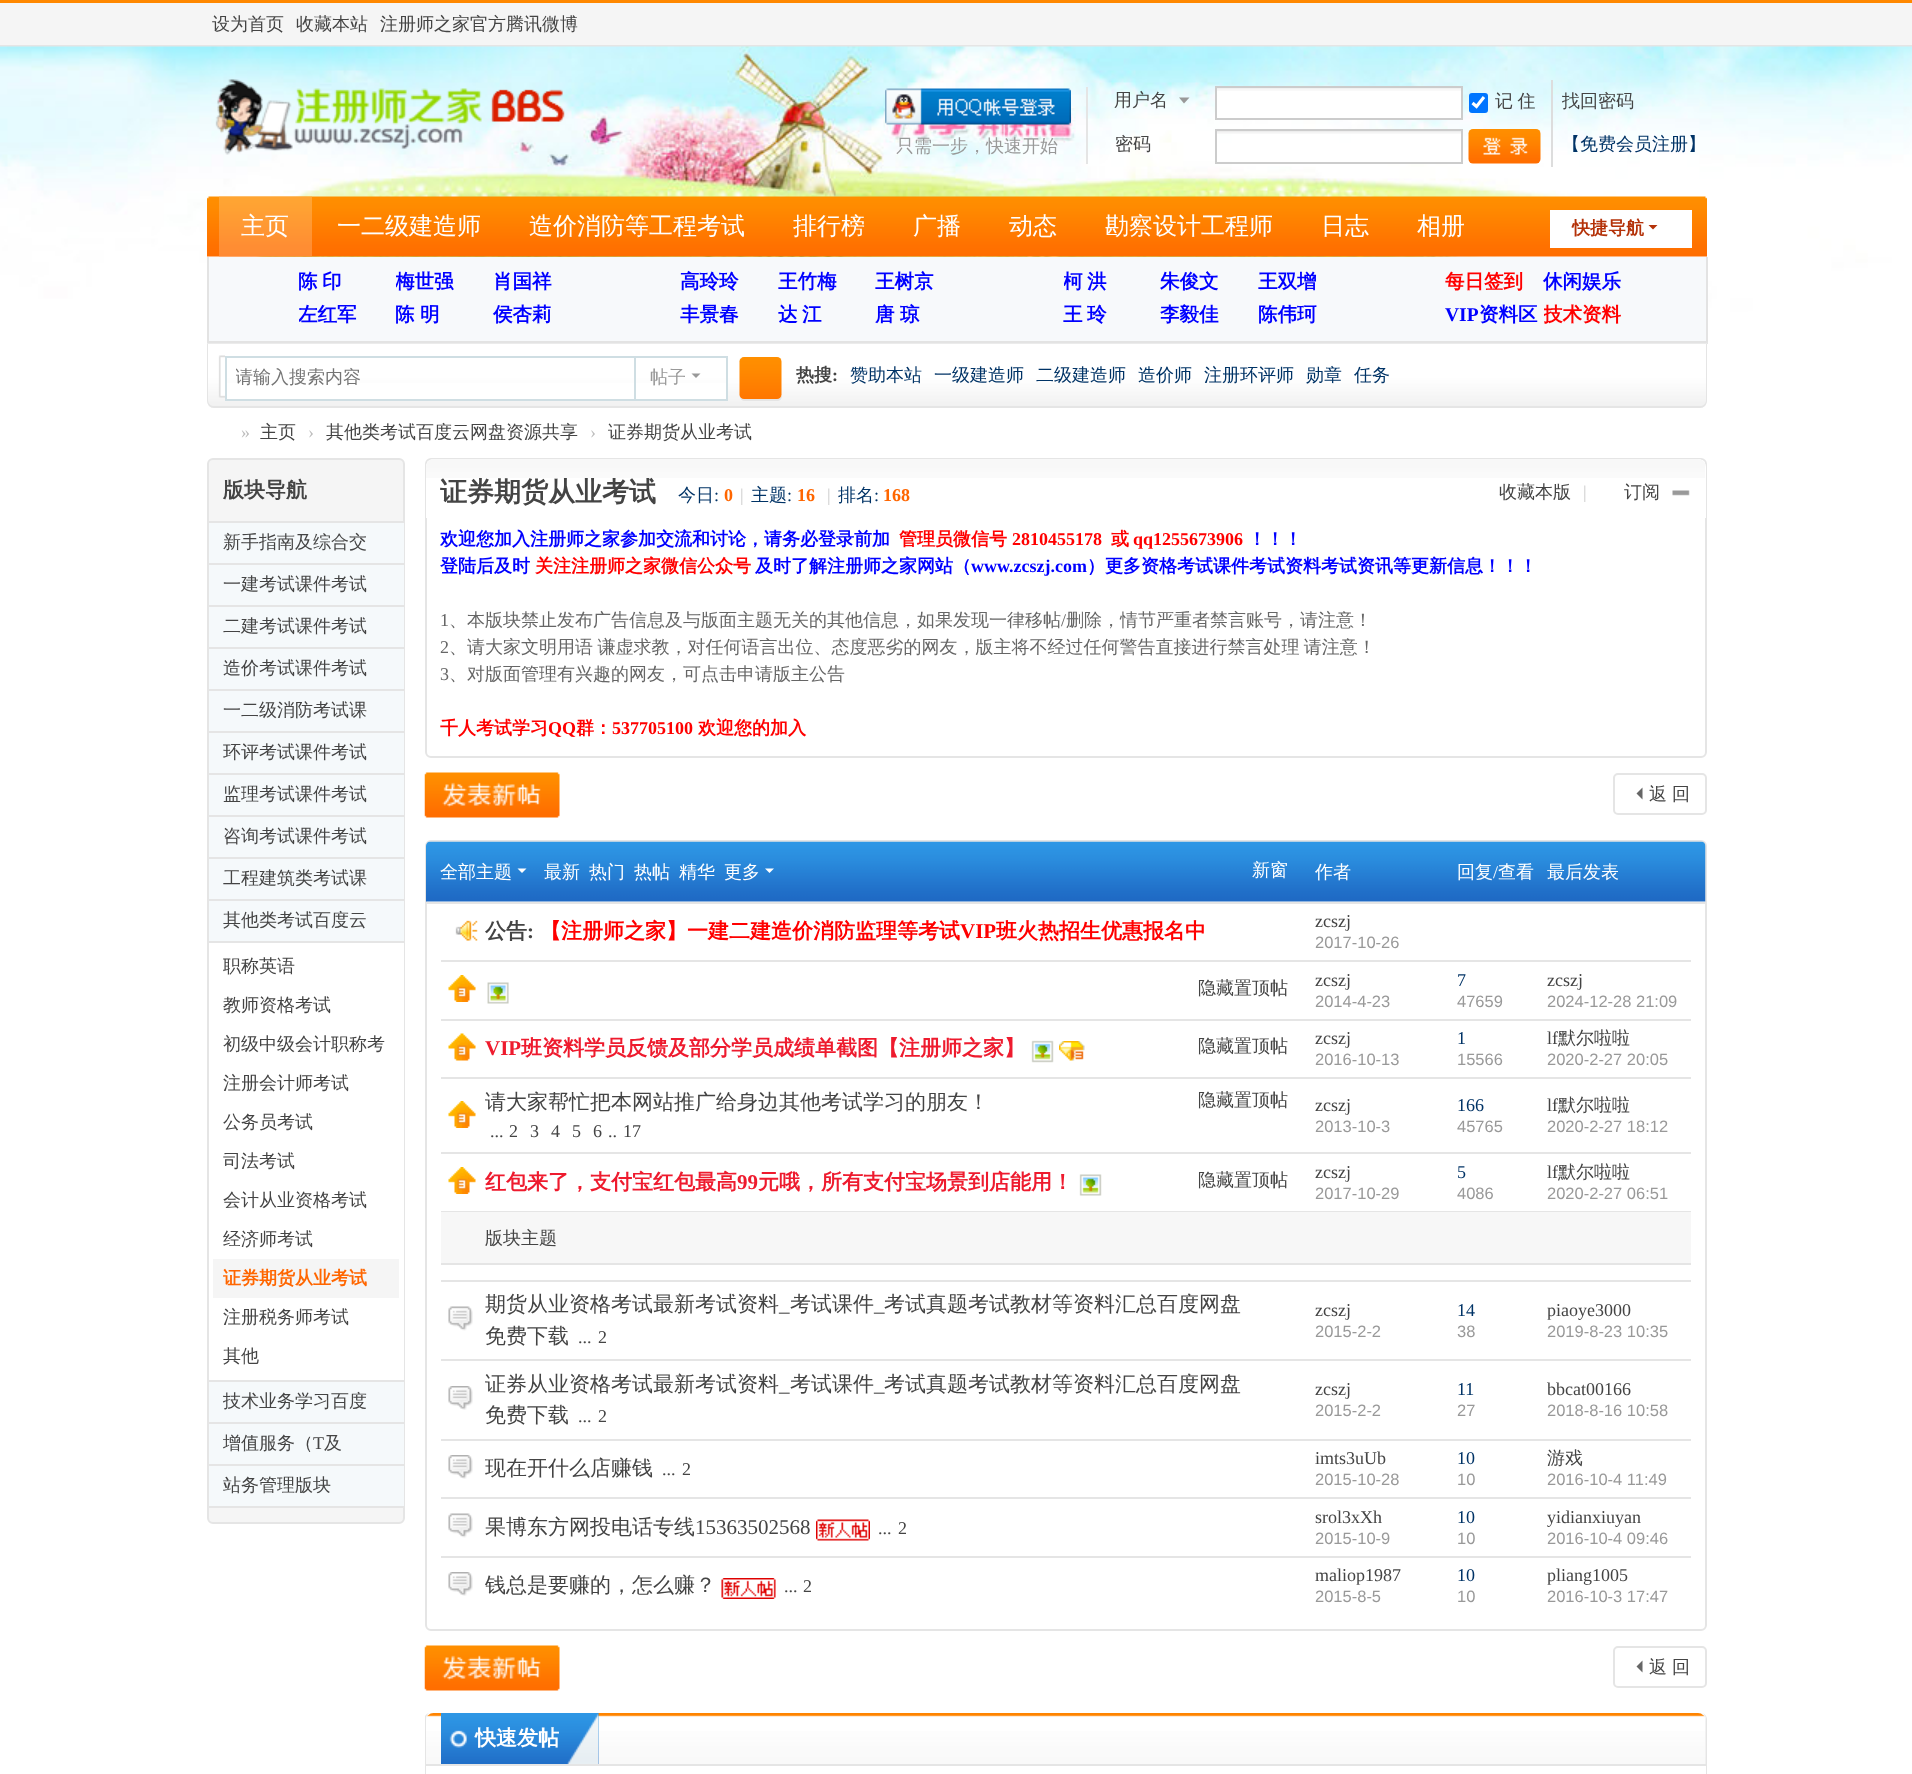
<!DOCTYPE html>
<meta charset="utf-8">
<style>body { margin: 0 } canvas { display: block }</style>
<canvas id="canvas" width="1912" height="1774"></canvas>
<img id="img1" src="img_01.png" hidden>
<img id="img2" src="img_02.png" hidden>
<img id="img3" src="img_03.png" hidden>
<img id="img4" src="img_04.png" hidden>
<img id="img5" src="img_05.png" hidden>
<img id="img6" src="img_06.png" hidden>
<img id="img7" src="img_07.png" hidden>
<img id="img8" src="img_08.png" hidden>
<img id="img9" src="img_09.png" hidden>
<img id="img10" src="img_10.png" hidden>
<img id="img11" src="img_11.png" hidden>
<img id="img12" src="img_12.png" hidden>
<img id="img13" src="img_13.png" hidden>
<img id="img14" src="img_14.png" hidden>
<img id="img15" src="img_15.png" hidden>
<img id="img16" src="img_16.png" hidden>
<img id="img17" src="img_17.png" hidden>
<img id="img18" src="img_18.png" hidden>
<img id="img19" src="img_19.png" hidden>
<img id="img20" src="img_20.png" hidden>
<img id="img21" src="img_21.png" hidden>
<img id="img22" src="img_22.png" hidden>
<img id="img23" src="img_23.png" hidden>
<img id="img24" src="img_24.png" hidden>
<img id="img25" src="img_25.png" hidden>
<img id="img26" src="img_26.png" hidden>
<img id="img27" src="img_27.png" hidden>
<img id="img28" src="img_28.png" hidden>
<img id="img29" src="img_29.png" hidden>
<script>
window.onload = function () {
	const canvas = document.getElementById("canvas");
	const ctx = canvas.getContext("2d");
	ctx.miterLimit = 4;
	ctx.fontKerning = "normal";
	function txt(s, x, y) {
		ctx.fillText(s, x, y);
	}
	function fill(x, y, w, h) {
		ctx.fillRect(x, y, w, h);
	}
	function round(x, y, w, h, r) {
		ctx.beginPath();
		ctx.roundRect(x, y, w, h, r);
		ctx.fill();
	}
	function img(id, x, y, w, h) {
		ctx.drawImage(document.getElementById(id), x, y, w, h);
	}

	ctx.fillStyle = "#FFFFFF";
	fill(0, 0, 1912, 1774);
	ctx.fillStyle = "#F5F5F5";
	fill(0, 3, 1912, 42);
	ctx.fillStyle = "#FF8800";
	fill(0, 0, 1912, 3);
	ctx.fillStyle = "#E5E5E5";
	fill(0, 45, 1912, 2);
	img("img1", 0, 46, 1912, 266);
	img("img2", 215, 79, 350, 76);
	fill(1086, 87, 2, 77);
	img("img3", 885, 88, 186, 37);
	ctx.fillStyle = "#999999";
	ctx.beginPath();
	ctx.moveTo(1189.5, 97.5);
	ctx.lineTo(1179, 97.5);
	ctx.lineTo(1184, 103.5);
	ctx.closePath();
	ctx.fill();
	ctx.fillStyle = "#FFFFFF";
	fill(1217, 91, 244, 27);
	img("img4", 1217, 88, 244, 3);
	ctx.strokeStyle = "#CCCCCC";
	ctx.lineWidth = 2;
	ctx.strokeRect(1216, 87, 246, 32);
	ctx.fillStyle = "#0075FF";
	round(1469, 93, 19, 20, 3);
	ctx.beginPath();
	ctx.moveTo(1472.5, 103);
	ctx.lineTo(1476.5, 106.5);
	ctx.lineTo(1484, 97);
	ctx.strokeStyle = "#FFFFFF";
	ctx.lineWidth = 3.1;
	ctx.stroke();
	ctx.fillStyle = "#FFFFFF";
	fill(1351, 134, 110, 28);
	img("img5", 1217, 131, 244, 3);
	ctx.strokeStyle = "#CCCCCC";
	ctx.lineWidth = 2;
	ctx.strokeRect(1216, 130, 246, 33);
	ctx.fillStyle = "#DDDDDD";
	fill(1551, 80, 2, 87);
	img("img6", 1468, 129, 73, 35);
	img("img7", 207, 196, 1500, 61);
	img("img8", 219, 196, 93, 61);
	ctx.fillStyle = "#FFFFFF";
	fill(1550, 210, 142, 38);
	ctx.fillStyle = "#B43209";
	ctx.beginPath();
	ctx.moveTo(1648.5, 225);
	ctx.lineTo(1657.5, 225);
	ctx.lineTo(1653, 229.5);
	ctx.closePath();
	ctx.fill();
	ctx.fillStyle = "#F7F9FB";
	fill(209, 257, 1497, 84);
	ctx.fillStyle = "#E3E3E3";
	fill(1706, 257, 2, 85);
	ctx.fillStyle = "#E5E5E5";
	fill(1706, 342, 2, 2);
	ctx.fillStyle = "#E3E3E3";
	fill(207, 341, 1500, 2);
	fill(207, 257, 2, 85);
	ctx.fillStyle = "#E5E5E5";
	fill(207, 343, 1500, 1);
	img("img9", 207, 343, 1500, 65);
	ctx.beginPath();
	ctx.moveTo(207, 344);
	ctx.lineTo(1707, 344);
	ctx.lineTo(1707, 400);
	ctx.bezierCurveTo(1707, 405, 1704, 408, 1700, 408);
	ctx.lineTo(214, 408);
	ctx.bezierCurveTo(210, 408, 207, 405, 207, 400);
	ctx.closePath();
	ctx.moveTo(208, 344);
	ctx.lineTo(1706, 344);
	ctx.lineTo(1706, 400);
	ctx.bezierCurveTo(1706, 404, 1703, 406, 1700, 406);
	ctx.lineTo(214, 406);
	ctx.bezierCurveTo(211, 406, 208, 404, 208, 400);
	ctx.closePath();
	ctx.fill("evenodd");
	img("img10", 218, 355, 7, 43);
	ctx.fillStyle = "#FFFFFF";
	fill(227, 383, 407, 16);
	ctx.fillStyle = "#CFDEE3";
	fill(633, 356, 95, 2);
	fill(726, 356, 2, 45);
	fill(633, 399, 95, 2);
	ctx.strokeStyle = "#CFDEE3";
	ctx.strokeRect(226, 357, 409, 43);
	ctx.fillStyle = "#FFFFFF";
	fill(636, 383, 90, 16);
	ctx.fillStyle = "#999999";
	ctx.beginPath();
	ctx.moveTo(691.5, 373.5);
	ctx.lineTo(700.5, 373.5);
	ctx.lineTo(696, 378);
	ctx.closePath();
	ctx.fill();
	ctx.fillStyle = "#E5E5E5";
	ctx.beginPath();
	ctx.moveTo(740, 397);
	ctx.bezierCurveTo(740, 399, 742, 401, 745, 401);
	ctx.lineTo(777, 401);
	ctx.bezierCurveTo(780, 401, 782, 399, 782, 396);
	ctx.lineTo(782, 364);
	ctx.lineTo(782, 362);
	ctx.lineTo(782, 394);
	ctx.bezierCurveTo(782, 397, 779, 399, 777, 399);
	ctx.lineTo(744, 399);
	ctx.bezierCurveTo(742, 399, 741, 398, 740, 397);
	ctx.closePath();
	ctx.fill();
	img("img11", 739, 357, 43, 42);
	ctx.fillStyle = "#F5F5F5";
	ctx.beginPath();
	ctx.roundRect(208, 459, 196, 1064, 5);
	ctx.fill();
	ctx.strokeStyle = "#E5E5E5";
	ctx.stroke();
	ctx.fillStyle = "#F5F9FB";
	fill(209, 523, 195, 40);
	ctx.fillStyle = "#E5E5E5";
	fill(209, 521, 195, 2);
	ctx.fillStyle = "#F5F9FB";
	fill(209, 565, 195, 40);
	ctx.fillStyle = "#E5E5E5";
	fill(209, 563, 195, 2);
	ctx.fillStyle = "#F5F9FB";
	fill(209, 607, 195, 40);
	ctx.fillStyle = "#E5E5E5";
	fill(209, 605, 195, 2);
	ctx.fillStyle = "#F5F9FB";
	fill(209, 649, 195, 40);
	ctx.fillStyle = "#E5E5E5";
	fill(209, 647, 195, 2);
	ctx.fillStyle = "#F5F9FB";
	fill(209, 691, 195, 40);
	ctx.fillStyle = "#E5E5E5";
	fill(209, 689, 195, 2);
	ctx.fillStyle = "#F5F9FB";
	fill(209, 733, 195, 40);
	ctx.fillStyle = "#E5E5E5";
	fill(209, 731, 195, 2);
	ctx.fillStyle = "#F5F9FB";
	fill(209, 775, 195, 40);
	ctx.fillStyle = "#E5E5E5";
	fill(209, 773, 195, 2);
	ctx.fillStyle = "#F5F9FB";
	fill(209, 817, 195, 40);
	ctx.fillStyle = "#E5E5E5";
	fill(209, 815, 195, 2);
	ctx.fillStyle = "#F5F9FB";
	fill(209, 859, 195, 40);
	ctx.fillStyle = "#E5E5E5";
	fill(209, 857, 195, 2);
	ctx.fillStyle = "#FFFFFF";
	fill(209, 943, 195, 437);
	ctx.fillStyle = "#F5F9FB";
	fill(209, 901, 195, 40);
	ctx.fillStyle = "#E5E5E5";
	fill(209, 899, 195, 2);
	fill(209, 941, 195, 2);
	ctx.fillStyle = "#F5F5F5";
	fill(213, 1259, 186, 39);
	ctx.fillStyle = "#F5F9FB";
	fill(209, 1382, 195, 40);
	ctx.fillStyle = "#E5E5E5";
	fill(209, 1380, 195, 2);
	fill(209, 1422, 195, 2);
	ctx.fillStyle = "#F5F9FB";
	fill(209, 1424, 195, 40);
	ctx.fillStyle = "#E5E5E5";
	fill(209, 1464, 195, 2);
	ctx.fillStyle = "#F5F9FB";
	fill(209, 1466, 195, 40);
	ctx.fillStyle = "#E5E5E5";
	fill(209, 1506, 195, 2);
	ctx.beginPath();
	ctx.roundRect(426, 459, 1280, 298, 5);
	ctx.stroke();
	ctx.fillStyle = "#FFFFFF";
	ctx.beginPath();
	ctx.roundRect(426, 459, 1280, 59, [8, 8, 0, 0]);
	ctx.fill();
	img("img12", 426, 459, 1279, 19);
	img("img13", 1672, 490, 18, 6);
	img("img14", 424, 772, 136, 46);
	ctx.beginPath();
	ctx.roundRect(1614, 774, 92, 40, 4);
	ctx.stroke();
	ctx.fillStyle = "#666666";
	ctx.beginPath();
	ctx.moveTo(1642.5, 787.5);
	ctx.lineTo(1642.5, 799.5);
	ctx.lineTo(1636.5, 793.5);
	ctx.closePath();
	ctx.fill();
	ctx.beginPath();
	ctx.roundRect(426, 841, 1280, 789, 5);
	ctx.stroke();
	img("img15", 426, 841, 1280, 61);
	ctx.fillStyle = "#E5E5E5";
	fill(426, 902, 1280, 2);
	ctx.fillStyle = "#FFFFFF";
	ctx.beginPath();
	ctx.moveTo(517.5, 868.5);
	ctx.lineTo(526.5, 868.5);
	ctx.lineTo(522, 873);
	ctx.closePath();
	ctx.fill();
	ctx.beginPath();
	ctx.moveTo(765, 868.5);
	ctx.lineTo(774, 868.5);
	ctx.lineTo(769.5, 873);
	ctx.closePath();
	ctx.fill();
	ctx.fillStyle = "#E5E5E5";
	fill(441, 960, 1250, 2);
	img("img16", 455, 920, 23, 21);
	fill(441, 1019, 1250, 2);
	img("img17", 448, 975, 28, 27);
	img("img18", 487, 982, 22, 22);
	fill(441, 1077, 1250, 2);
	img("img19", 448, 1033, 28, 28);
	img("img20", 1031, 1040, 23, 23);
	img("img21", 1059, 1041, 26, 20);
	fill(441, 1152, 1250, 2);
	img("img17", 448, 1101, 28, 27);
	fill(441, 1211, 1250, 1);
	img("img17", 448, 1167, 28, 27);
	img("img22", 1079, 1174, 23, 22);
	ctx.fillStyle = "#F7F7F7";
	fill(441, 1212, 1250, 51);
	ctx.fillStyle = "#E5E5E5";
	fill(441, 1263, 1250, 2);
	fill(441, 1280, 1250, 2);
	fill(441, 1359, 1250, 2);
	img("img23", 448, 1306, 25, 25);
	fill(441, 1439, 1250, 2);
	img("img24", 448, 1386, 25, 24);
	fill(441, 1497, 1250, 2);
	img("img24", 448, 1455, 25, 24);
	fill(441, 1556, 1250, 2);
	img("img23", 448, 1513, 25, 25);
	img("img25", 816, 1519, 54, 22);
	img("img24", 448, 1572, 25, 24);
	img("img26", 721, 1578, 55, 21);
	img("img14", 424, 1645, 136, 46);
	ctx.beginPath();
	ctx.roundRect(1614, 1647, 92, 40, 4);
	ctx.stroke();
	ctx.fillStyle = "#666666";
	ctx.beginPath();
	ctx.moveTo(1642.5, 1660.5);
	ctx.lineTo(1642.5, 1672.5);
	ctx.lineTo(1636.5, 1666.5);
	ctx.closePath();
	ctx.fill();
	ctx.save();
	ctx.beginPath();
	ctx.rect(425, 458, 1282, 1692);
	ctx.clip();
	ctx.fillStyle = "#E5E5E5";
	ctx.beginPath();
	ctx.moveTo(430, 1713);
	ctx.lineTo(1701, 1713);
	ctx.bezierCurveTo(1704, 1713, 1707, 1716, 1707, 1719);
	ctx.lineTo(1707, 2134);
	ctx.bezierCurveTo(1707, 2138, 1704, 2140, 1701, 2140);
	ctx.lineTo(430, 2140);
	ctx.bezierCurveTo(427, 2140, 424, 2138, 424, 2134);
	ctx.lineTo(424, 1719);
	ctx.bezierCurveTo(424, 1716, 427, 1713, 430, 1713);
	ctx.closePath();
	ctx.moveTo(430, 1713);
	ctx.lineTo(1701, 1713);
	ctx.bezierCurveTo(1703, 1713, 1706, 1716, 1706, 1719);
	ctx.lineTo(1706, 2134);
	ctx.bezierCurveTo(1706, 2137, 1703, 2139, 1701, 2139);
	ctx.lineTo(430, 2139);
	ctx.bezierCurveTo(428, 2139, 426, 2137, 426, 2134);
	ctx.lineTo(426, 1719);
	ctx.bezierCurveTo(426, 1716, 428, 1713, 430, 1713);
	ctx.closePath();
	ctx.fill("evenodd");
	ctx.restore();
	ctx.fillStyle = "#EEEEEE";
	ctx.beginPath();
	ctx.roundRect(426, 1713, 1280, 53, [8, 8, 0, 0]);
	ctx.fill();
	img("img27", 426, 1713, 1280, 51);
	ctx.fillStyle = "#E5E5E5";
	fill(426, 1764, 1280, 2);
	img("img28", 441, 1713, 158, 51);
	img("img29", 567, 1713, 32, 51);
	ctx.font = "500 18px WenQuanYi Zen Hei";
	ctx.fillStyle = "#444444";
	txt("设为首页", 212, 30);
	txt("收藏本站", 296, 30);
	txt("注册师之家官方腾讯微博", 380, 30);
	ctx.fillStyle = "#999999";
	txt("只需一步，快速开始", 896, 152);
	ctx.fillStyle = "#444444";
	txt("用户名", 1114, 106);
	ctx.wordSpacing = "-1px";
	txt("记 住", 1495, 107);
	ctx.wordSpacing = "0px";
	txt("找回密码", 1562, 107);
	txt("密码", 1115, 150);
	ctx.fillStyle = "#003366";
	txt("【免费会员注册】", 1562, 150);
	ctx.font = "500 24px WenQuanYi Zen Hei";
	ctx.fillStyle = "#FFFFFF";
	txt("主页", 241, 234);
	txt("一二级建造师", 337, 234);
	txt("造价消防等工程考试", 529, 234);
	txt("排行榜", 793, 234);
	txt("广播", 913, 234);
	txt("动态", 1009, 234);
	txt("勘察设计工程师", 1105, 234);
	txt("日志", 1321, 234);
	txt("相册", 1417, 234);
	ctx.font = "bold 18px WenQuanYi Zen Hei";
	ctx.fillStyle = "#B43209";
	txt("快捷导航", 1572, 234);
	ctx.save();
	ctx.beginPath();
	ctx.rect(299, 266, 97, 33);
	ctx.clip();
	ctx.font = "bold 19.5px WenQuanYi Zen Hei";
	ctx.fillStyle = "#0000FF";
	txt("陈", 298, 288);
	ctx.restore();
	ctx.font = "bold 19.5px WenQuanYi Zen Hei";
	ctx.fillStyle = "#0000FF";
	txt("印", 322, 288);
	ctx.save();
	ctx.beginPath();
	ctx.rect(396, 266, 98, 33);
	ctx.clip();
	txt("梅世强", 395, 288);
	ctx.restore();
	txt("肖国祥", 493, 288);
	ctx.save();
	ctx.beginPath();
	ctx.rect(299, 299, 97, 33);
	ctx.clip();
	txt("左红军", 298, 321);
	ctx.restore();
	txt("陈", 395, 321);
	txt("明", 420, 321);
	txt("侯杏莉", 493, 321);
	txt("高玲玲", 680, 288);
	txt("王竹梅", 778, 288);
	txt("王树京", 875, 288);
	txt("丰景春", 680, 321);
	txt("达", 778, 321);
	txt("江", 802, 321);
	txt("唐", 875, 321);
	txt("琼", 900, 321);
	ctx.save();
	ctx.beginPath();
	ctx.rect(1064, 266, 97, 33);
	ctx.clip();
	txt("柯", 1063, 288);
	ctx.restore();
	txt("洪", 1087, 288);
	txt("朱俊文", 1160, 288);
	txt("王双增", 1258, 288);
	txt("王", 1063, 321);
	txt("玲", 1087, 321);
	txt("李毅佳", 1160, 321);
	ctx.save();
	ctx.beginPath();
	ctx.rect(1259, 299, 97, 33);
	ctx.clip();
	txt("陈伟珂", 1258, 321);
	ctx.restore();
	ctx.fillStyle = "#FF0000";
	txt("每日签到", 1445, 288);
	ctx.fillStyle = "#0000FF";
	txt("休闲娱乐", 1543, 288);
	ctx.font = "bold 19.5px Liberation Serif";
	txt("VIP", 1445, 321);
	ctx.font = "bold 19.5px WenQuanYi Zen Hei";
	txt("资料区", 1479, 321);
	ctx.save();
	ctx.beginPath();
	ctx.rect(1544, 299, 97, 33);
	ctx.clip();
	ctx.fillStyle = "#FF0000";
	txt("技术资料", 1543, 321);
	ctx.restore();
	ctx.save();
	ctx.beginPath();
	ctx.rect(236, 366, 390, 26);
	ctx.clip();
	ctx.font = "500 18px WenQuanYi Zen Hei";
	ctx.fillStyle = "#757575";
	txt("请输入搜索内容", 235, 383);
	ctx.restore();
	ctx.font = "500 18px WenQuanYi Zen Hei";
	ctx.fillStyle = "#999999";
	txt("帖子", 650, 383);
	ctx.font = "bold 18px WenQuanYi Zen Hei";
	ctx.fillStyle = "#444444";
	txt("热搜", 796, 381);
	ctx.font = "bold 18px Liberation Serif";
	txt(":", 832, 381);
	ctx.font = "500 18px WenQuanYi Zen Hei";
	ctx.fillStyle = "#003366";
	txt("赞助本站", 850, 381);
	txt("一级建造师", 934, 381);
	txt("二级建造师", 1036, 381);
	txt("造价师", 1138, 381);
	txt("注册环评师", 1204, 381);
	txt("勋章", 1306, 381);
	txt("任务", 1354, 381);
	ctx.font = "18px Liberation Serif";
	ctx.fillStyle = "#BDBDBD";
	txt("»", 241, 438);
	ctx.font = "500 18px WenQuanYi Zen Hei";
	ctx.fillStyle = "#444444";
	txt("主页", 260, 438);
	ctx.font = "18px Liberation Serif";
	ctx.fillStyle = "#BDBDBD";
	txt("›", 308, 438);
	ctx.font = "500 18px WenQuanYi Zen Hei";
	ctx.fillStyle = "#444444";
	txt("其他类考试百度云网盘资源共享", 326, 438);
	ctx.font = "18px Liberation Serif";
	ctx.fillStyle = "#BDBDBD";
	txt("›", 590, 438);
	ctx.font = "500 18px WenQuanYi Zen Hei";
	ctx.fillStyle = "#444444";
	txt("证券期货从业考试", 608, 438);
	ctx.font = "bold 21px WenQuanYi Zen Hei";
	txt("版块导航", 223, 497);
	ctx.font = "500 18px WenQuanYi Zen Hei";
	txt("新手指南及综合交", 223, 548);
	txt("一建考试课件考试", 223, 590);
	txt("二建考试课件考试", 223, 632);
	txt("造价考试课件考试", 223, 674);
	txt("一二级消防考试课", 223, 716);
	txt("环评考试课件考试", 223, 758);
	txt("监理考试课件考试", 223, 800);
	txt("咨询考试课件考试", 223, 842);
	txt("工程建筑类考试课", 223, 884);
	txt("其他类考试百度云", 223, 926);
	txt("职称英语", 223, 972);
	txt("教师资格考试", 223, 1011);
	txt("初级中级会计职称考", 223, 1050);
	txt("注册会计师考试", 223, 1089);
	txt("公务员考试", 223, 1128);
	txt("司法考试", 223, 1167);
	txt("会计从业资格考试", 223, 1206);
	txt("经济师考试", 223, 1245);
	ctx.font = "bold 18px WenQuanYi Zen Hei";
	ctx.fillStyle = "#FF6600";
	txt("证券期货从业考试", 223, 1284);
	ctx.font = "500 18px WenQuanYi Zen Hei";
	ctx.fillStyle = "#444444";
	txt("注册税务师考试", 223, 1323);
	txt("其他", 223, 1362);
	txt("技术业务学习百度", 223, 1407);
	txt("增值服务（", 223, 1449);
	ctx.font = "18px Liberation Serif";
	txt("T", 313, 1449);
	ctx.font = "500 18px WenQuanYi Zen Hei";
	txt("及", 324, 1449);
	txt("站务管理版块", 223, 1491);
	ctx.font = "bold 27px WenQuanYi Zen Hei";
	txt("证券期货从业考试", 440, 501);
	ctx.font = "500 18px WenQuanYi Zen Hei";
	ctx.fillStyle = "#003366";
	txt("今日", 678, 501);
	ctx.font = "18px Liberation Serif";
	txt(":", 714, 501);
	ctx.font = "bold 18px Liberation Serif";
	ctx.fillStyle = "#FF6600";
	txt("0", 724, 501);
	ctx.font = "18px Liberation Serif";
	ctx.fillStyle = "#CCCCCC";
	txt("|", 740, 501);
	ctx.font = "500 18px WenQuanYi Zen Hei";
	ctx.fillStyle = "#003366";
	txt("主题", 751, 501);
	ctx.font = "18px Liberation Serif";
	txt(":", 787, 501);
	ctx.font = "bold 18px Liberation Serif";
	ctx.fillStyle = "#FF6600";
	txt("16", 797, 501);
	ctx.font = "18px Liberation Serif";
	ctx.fillStyle = "#CCCCCC";
	txt("|", 827, 501);
	ctx.font = "500 18px WenQuanYi Zen Hei";
	ctx.fillStyle = "#003366";
	txt("排名", 838, 501);
	ctx.font = "18px Liberation Serif";
	txt(":", 874, 501);
	ctx.font = "bold 18px Liberation Serif";
	ctx.fillStyle = "#FF6600";
	txt("168", 883, 501);
	ctx.font = "500 18px WenQuanYi Zen Hei";
	ctx.fillStyle = "#444444";
	txt("收藏本版", 1499, 498);
	ctx.font = "18px Liberation Serif";
	ctx.fillStyle = "#CCCCCC";
	txt("|", 1583, 498);
	ctx.font = "500 18px WenQuanYi Zen Hei";
	ctx.fillStyle = "#444444";
	txt("订阅", 1624, 498);
	ctx.font = "bold 18px WenQuanYi Zen Hei";
	ctx.fillStyle = "#0000FF";
	txt("欢迎您加入注册师之家参加交流和讨论，请务必登录前加", 440, 545);
	ctx.fillStyle = "#FF0000";
	txt("管理员微信号", 899, 545);
	ctx.font = "bold 18px Liberation Serif";
	txt("2810455178", 1012, 545);
	ctx.font = "bold 18px WenQuanYi Zen Hei";
	txt("或", 1111, 545);
	ctx.font = "bold 18px Liberation Serif";
	txt("qq1255673906", 1133, 545);
	ctx.font = "bold 18px WenQuanYi Zen Hei";
	ctx.fillStyle = "#0000FF";
	txt("！！！", 1248, 545);
	txt("登陆后及时", 440, 572);
	ctx.fillStyle = "#FF0000";
	txt("关注注册师之家微信公众号", 535, 572);
	ctx.fillStyle = "#0000FF";
	txt("及时了解注册师之家网站（", 755, 572);
	ctx.font = "bold 18px Liberation Serif";
	txt("www.zcszj.com", 971, 572);
	ctx.font = "bold 18px WenQuanYi Zen Hei";
	txt("）更多资格考试课件考试资料考试资讯等更新信息！！！", 1087, 572);
	ctx.font = "18px Liberation Serif";
	ctx.fillStyle = "#666666";
	txt("1", 440, 626);
	ctx.font = "500 18px WenQuanYi Zen Hei";
	txt("、本版块禁止发布广告信息及与版面主题无关的其他信息，如果发现一律移帖", 449, 626);
	ctx.font = "18px Liberation Serif";
	txt("/", 1061, 626);
	ctx.font = "500 18px WenQuanYi Zen Hei";
	txt("删除，情节严重者禁言账号，请注意！", 1066, 626);
	ctx.font = "18px Liberation Serif";
	txt("2", 440, 653);
	ctx.wordSpacing = "-1px";
	ctx.font = "500 18px WenQuanYi Zen Hei";
	txt("、请大家文明用语 谦虚求教，对任何语言出位、态度恶劣的网友，版主将不经过任何警告直接进行禁言处理 请注意！", 449, 653);
	ctx.wordSpacing = "0px";
	ctx.font = "18px Liberation Serif";
	txt("3", 440, 680);
	ctx.font = "500 18px WenQuanYi Zen Hei";
	txt("、对版面管理有兴趣的网友，可点击申请版主公告", 449, 680);
	ctx.font = "bold 18px WenQuanYi Zen Hei";
	ctx.fillStyle = "#FF0000";
	txt("千人考试学习", 440, 734);
	ctx.font = "bold 18px Liberation Serif";
	txt("QQ", 548, 734);
	ctx.font = "bold 18px WenQuanYi Zen Hei";
	txt("群：", 576, 734);
	ctx.font = "bold 18px Liberation Serif";
	txt("537705100", 612, 734);
	ctx.font = "bold 18px WenQuanYi Zen Hei";
	txt("欢迎您的加入", 698, 734);
	ctx.font = "500 18px WenQuanYi Zen Hei";
	ctx.fillStyle = "#444444";
	txt("返", 1649, 800);
	txt("回", 1672, 800);
	ctx.fillStyle = "#FFFFFF";
	txt("全部主题", 440, 878);
	txt("最新", 544, 878);
	txt("热门", 589, 878);
	txt("热帖", 634, 878);
	txt("精华", 679, 878);
	txt("更多", 724, 878);
	txt("新窗", 1252, 876);
	txt("作者", 1315, 878);
	txt("回复", 1457, 878);
	ctx.font = "18px Liberation Serif";
	txt("/", 1493, 878);
	ctx.font = "500 18px WenQuanYi Zen Hei";
	txt("查看", 1498, 878);
	txt("最后发表", 1547, 878);
	ctx.font = "18px Liberation Serif";
	ctx.fillStyle = "#444444";
	txt("zcszj", 1315, 927);
	ctx.font = "16.5px Liberation Sans";
	ctx.fillStyle = "#999999";
	txt("2017-10-26", 1315, 948);
	ctx.font = "bold 21px WenQuanYi Zen Hei";
	ctx.fillStyle = "#444444";
	txt("公告", 485, 938);
	ctx.font = "bold 21px Liberation Serif";
	txt(":", 527, 938);
	ctx.font = "bold 21px WenQuanYi Zen Hei";
	ctx.fillStyle = "#FF0000";
	txt("【注册师之家】一建二建造价消防监理等考试", 540, 938);
	ctx.font = "bold 21px Liberation Serif";
	txt("VIP", 960, 938);
	ctx.font = "bold 21px WenQuanYi Zen Hei";
	txt("班火热招生优惠报名中", 996, 938);
	ctx.font = "18px Liberation Serif";
	ctx.fillStyle = "#444444";
	txt("zcszj", 1315, 986);
	ctx.font = "16.5px Liberation Sans";
	ctx.fillStyle = "#999999";
	txt("2014-4-23", 1315, 1007);
	ctx.font = "18px Liberation Serif";
	ctx.fillStyle = "#003366";
	txt("7", 1457, 986);
	ctx.font = "16.5px Liberation Sans";
	ctx.fillStyle = "#999999";
	txt("47659", 1457, 1007);
	ctx.font = "18px Liberation Serif";
	ctx.fillStyle = "#444444";
	txt("zcszj", 1547, 986);
	ctx.font = "16.5px Liberation Sans";
	ctx.fillStyle = "#999999";
	txt("2024-12-28 21:09", 1547, 1007);
	ctx.font = "500 18px WenQuanYi Zen Hei";
	ctx.fillStyle = "#444444";
	txt("隐藏置顶帖", 1198, 994);
	ctx.font = "18px Liberation Serif";
	txt("zcszj", 1315, 1044);
	ctx.font = "16.5px Liberation Sans";
	ctx.fillStyle = "#999999";
	txt("2016-10-13", 1315, 1065);
	ctx.font = "18px Liberation Serif";
	ctx.fillStyle = "#003366";
	txt("1", 1457, 1044);
	ctx.font = "16.5px Liberation Sans";
	ctx.fillStyle = "#999999";
	txt("15566", 1457, 1065);
	ctx.font = "18px Liberation Serif";
	ctx.fillStyle = "#444444";
	txt("lf", 1547, 1044);
	ctx.font = "500 18px WenQuanYi Zen Hei";
	txt("默尔啦啦", 1558, 1044);
	ctx.font = "16.5px Liberation Sans";
	ctx.fillStyle = "#999999";
	txt("2020-2-27 20:05", 1547, 1065);
	ctx.font = "bold 21px Liberation Serif";
	ctx.fillStyle = "#EE1B2E";
	txt("VIP", 485, 1055);
	ctx.font = "bold 21px WenQuanYi Zen Hei";
	txt("班资料学员反馈及部分学员成绩单截图【注册师之家】", 521, 1055);
	ctx.font = "500 18px WenQuanYi Zen Hei";
	ctx.fillStyle = "#444444";
	txt("隐藏置顶帖", 1198, 1052);
	ctx.font = "500 21px WenQuanYi Zen Hei";
	txt("请大家帮忙把本网站推广给身边其他考试学习的朋友！", 485, 1109);
	ctx.font = "500 18px WenQuanYi Zen Hei";
	txt("隐藏置顶帖", 1198, 1106);
	ctx.font = "18px Liberation Serif";
	txt("...", 490, 1137);
	txt("2", 509, 1137);
	txt("3", 530, 1137);
	txt("4", 551, 1137);
	txt("5", 572, 1137);
	txt("6", 593, 1137);
	txt("..", 608, 1137);
	txt("17", 623, 1137);
	txt("zcszj", 1315, 1111);
	ctx.font = "16.5px Liberation Sans";
	ctx.fillStyle = "#999999";
	txt("2013-10-3", 1315, 1132);
	ctx.font = "18px Liberation Serif";
	ctx.fillStyle = "#003366";
	txt("166", 1457, 1111);
	ctx.font = "16.5px Liberation Sans";
	ctx.fillStyle = "#999999";
	txt("45765", 1457, 1132);
	ctx.font = "18px Liberation Serif";
	ctx.fillStyle = "#444444";
	txt("lf", 1547, 1111);
	ctx.font = "500 18px WenQuanYi Zen Hei";
	txt("默尔啦啦", 1558, 1111);
	ctx.font = "16.5px Liberation Sans";
	ctx.fillStyle = "#999999";
	txt("2020-2-27 18:12", 1547, 1132);
	ctx.font = "18px Liberation Serif";
	ctx.fillStyle = "#444444";
	txt("zcszj", 1315, 1178);
	ctx.font = "16.5px Liberation Sans";
	ctx.fillStyle = "#999999";
	txt("2017-10-29", 1315, 1199);
	ctx.font = "18px Liberation Serif";
	ctx.fillStyle = "#003366";
	txt("5", 1457, 1178);
	ctx.font = "16.5px Liberation Sans";
	ctx.fillStyle = "#999999";
	txt("4086", 1457, 1199);
	ctx.font = "18px Liberation Serif";
	ctx.fillStyle = "#444444";
	txt("lf", 1547, 1178);
	ctx.font = "500 18px WenQuanYi Zen Hei";
	txt("默尔啦啦", 1558, 1178);
	ctx.font = "16.5px Liberation Sans";
	ctx.fillStyle = "#999999";
	txt("2020-2-27 06:51", 1547, 1199);
	ctx.font = "bold 21px WenQuanYi Zen Hei";
	ctx.fillStyle = "#EE1B2E";
	txt("红包来了，支付宝红包最高", 485, 1189);
	ctx.font = "bold 21px Liberation Serif";
	txt("99", 737, 1189);
	ctx.font = "bold 21px WenQuanYi Zen Hei";
	txt("元哦，所有支付宝场景到店能用！", 758, 1189);
	ctx.font = "500 18px WenQuanYi Zen Hei";
	ctx.fillStyle = "#444444";
	txt("隐藏置顶帖", 1198, 1186);
	txt("版块主题", 485, 1244);
	ctx.font = "500 21px WenQuanYi Zen Hei";
	txt("期货从业资格考试最新考试资料", 485, 1311);
	ctx.font = "21px Liberation Serif";
	txt("_", 779, 1311);
	ctx.font = "500 21px WenQuanYi Zen Hei";
	txt("考试课件", 790, 1311);
	ctx.font = "21px Liberation Serif";
	txt("_", 874, 1311);
	ctx.font = "500 21px WenQuanYi Zen Hei";
	txt("考试真题考试教材等资料汇总百度网盘", 884, 1311);
	txt("免费下载", 485, 1343);
	ctx.font = "18px Liberation Serif";
	txt("...", 578, 1343);
	txt("2", 598, 1343);
	txt("zcszj", 1315, 1316);
	ctx.font = "16.5px Liberation Sans";
	ctx.fillStyle = "#999999";
	txt("2015-2-2", 1315, 1337);
	ctx.font = "18px Liberation Serif";
	ctx.fillStyle = "#003366";
	txt("14", 1457, 1316);
	ctx.font = "16.5px Liberation Sans";
	ctx.fillStyle = "#999999";
	txt("38", 1457, 1337);
	ctx.font = "18px Liberation Serif";
	ctx.fillStyle = "#444444";
	txt("piaoye3000", 1547, 1316);
	ctx.font = "16.5px Liberation Sans";
	ctx.fillStyle = "#999999";
	txt("2019-8-23 10:35", 1547, 1337);
	ctx.font = "500 21px WenQuanYi Zen Hei";
	ctx.fillStyle = "#444444";
	txt("证券从业资格考试最新考试资料", 485, 1391);
	ctx.font = "21px Liberation Serif";
	txt("_", 779, 1391);
	ctx.font = "500 21px WenQuanYi Zen Hei";
	txt("考试课件", 790, 1391);
	ctx.font = "21px Liberation Serif";
	txt("_", 874, 1391);
	ctx.font = "500 21px WenQuanYi Zen Hei";
	txt("考试真题考试教材等资料汇总百度网盘", 884, 1391);
	txt("免费下载", 485, 1422);
	ctx.font = "18px Liberation Serif";
	txt("...", 578, 1422);
	txt("2", 598, 1422);
	txt("zcszj", 1315, 1395);
	ctx.font = "16.5px Liberation Sans";
	ctx.fillStyle = "#999999";
	txt("2015-2-2", 1315, 1416);
	ctx.font = "18px Liberation Serif";
	ctx.fillStyle = "#003366";
	txt("11", 1457, 1395);
	ctx.font = "16.5px Liberation Sans";
	ctx.fillStyle = "#999999";
	txt("27", 1457, 1416);
	ctx.font = "18px Liberation Serif";
	ctx.fillStyle = "#444444";
	txt("bbcat00166", 1547, 1395);
	ctx.font = "16.5px Liberation Sans";
	ctx.fillStyle = "#999999";
	txt("2018-8-16 10:58", 1547, 1416);
	ctx.font = "18px Liberation Serif";
	ctx.fillStyle = "#444444";
	txt("imts3uUb", 1315, 1464);
	ctx.font = "16.5px Liberation Sans";
	ctx.fillStyle = "#999999";
	txt("2015-10-28", 1315, 1485);
	ctx.font = "18px Liberation Serif";
	ctx.fillStyle = "#003366";
	txt("10", 1457, 1464);
	ctx.font = "16.5px Liberation Sans";
	ctx.fillStyle = "#999999";
	txt("10", 1457, 1485);
	ctx.font = "500 18px WenQuanYi Zen Hei";
	ctx.fillStyle = "#444444";
	txt("游戏", 1547, 1464);
	ctx.font = "16.5px Liberation Sans";
	ctx.fillStyle = "#999999";
	txt("2016-10-4 11:49", 1547, 1485);
	ctx.font = "500 21px WenQuanYi Zen Hei";
	ctx.fillStyle = "#444444";
	txt("现在开什么店赚钱", 485, 1475);
	ctx.font = "18px Liberation Serif";
	txt("...", 662, 1475);
	txt("2", 682, 1475);
	txt("srol3xXh", 1315, 1523);
	ctx.font = "16.5px Liberation Sans";
	ctx.fillStyle = "#999999";
	txt("2015-10-9", 1315, 1544);
	ctx.font = "18px Liberation Serif";
	ctx.fillStyle = "#003366";
	txt("10", 1457, 1523);
	ctx.font = "16.5px Liberation Sans";
	ctx.fillStyle = "#999999";
	txt("10", 1457, 1544);
	ctx.font = "18px Liberation Serif";
	ctx.fillStyle = "#444444";
	txt("yidianxiuyan", 1547, 1523);
	ctx.font = "16.5px Liberation Sans";
	ctx.fillStyle = "#999999";
	txt("2016-10-4 09:46", 1547, 1544);
	ctx.font = "500 21px WenQuanYi Zen Hei";
	ctx.fillStyle = "#444444";
	txt("果博东方网投电话专线", 485, 1534);
	ctx.font = "21px Liberation Serif";
	txt("15363502568", 695, 1534);
	ctx.font = "18px Liberation Serif";
	txt("...", 878, 1534);
	txt("2", 898, 1534);
	ctx.font = "500 21px WenQuanYi Zen Hei";
	txt("钱总是要赚的，怎么赚？", 485, 1592);
	ctx.font = "18px Liberation Serif";
	txt("...", 784, 1592);
	txt("2", 803, 1592);
	txt("maliop1987", 1315, 1581);
	ctx.font = "16.5px Liberation Sans";
	ctx.fillStyle = "#999999";
	txt("2015-8-5", 1315, 1602);
	ctx.font = "18px Liberation Serif";
	ctx.fillStyle = "#003366";
	txt("10", 1457, 1581);
	ctx.font = "16.5px Liberation Sans";
	ctx.fillStyle = "#999999";
	txt("10", 1457, 1602);
	ctx.font = "18px Liberation Serif";
	ctx.fillStyle = "#444444";
	txt("pliang1005", 1547, 1581);
	ctx.font = "16.5px Liberation Sans";
	ctx.fillStyle = "#999999";
	txt("2016-10-3 17:47", 1547, 1602);
	ctx.font = "500 18px WenQuanYi Zen Hei";
	ctx.fillStyle = "#444444";
	txt("返", 1649, 1673);
	txt("回", 1672, 1673);
	ctx.font = "bold 21px WenQuanYi Zen Hei";
	ctx.fillStyle = "#FFFFFF";
	txt("快速发帖", 475, 1745);
};
</script>
